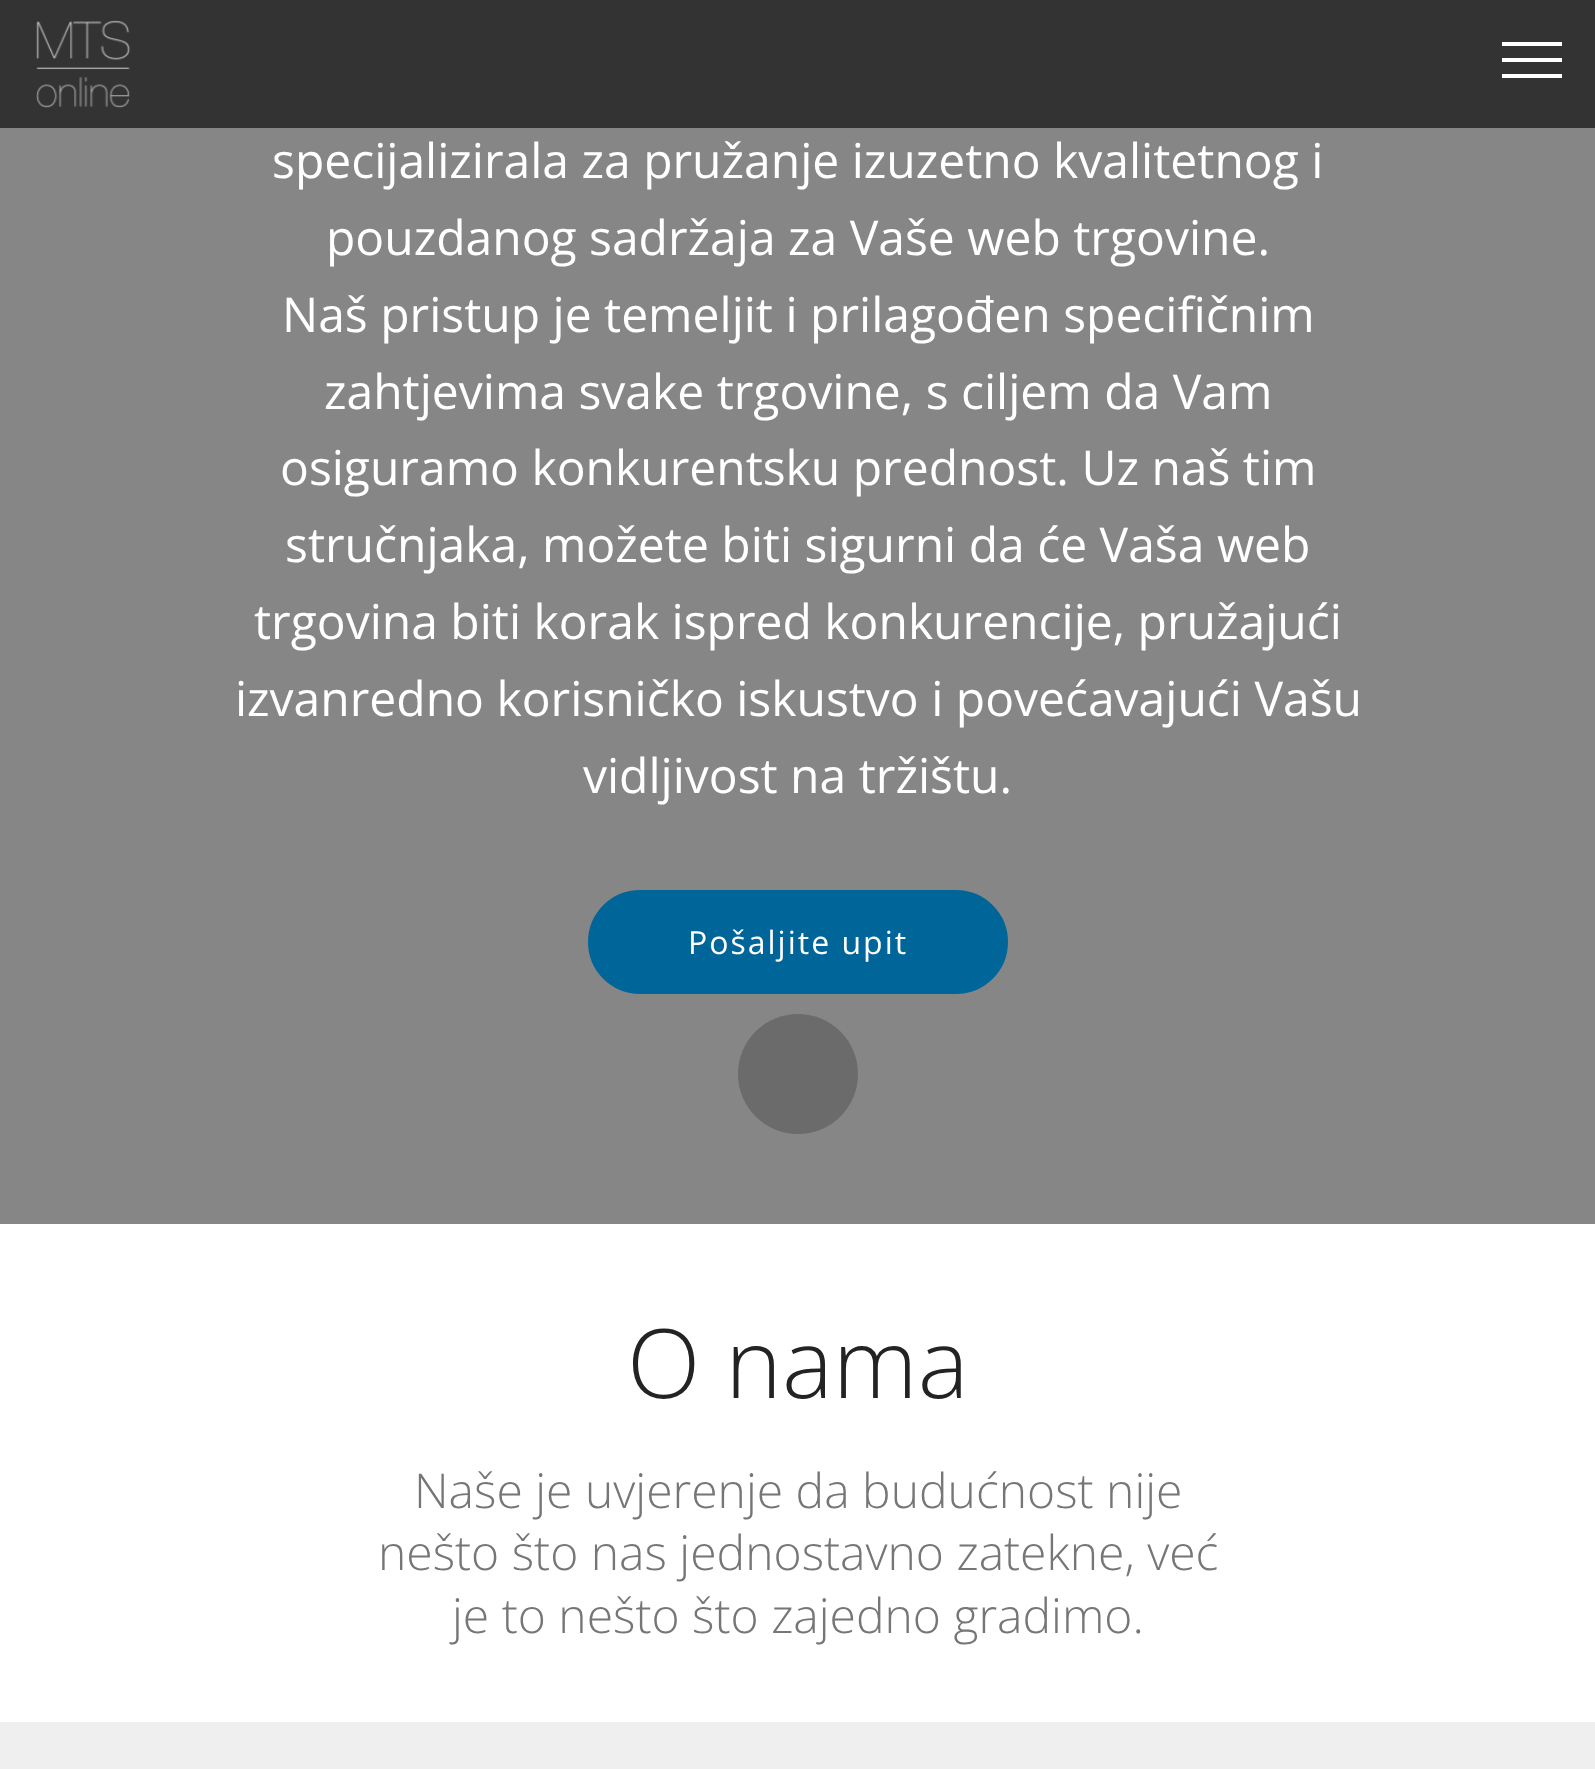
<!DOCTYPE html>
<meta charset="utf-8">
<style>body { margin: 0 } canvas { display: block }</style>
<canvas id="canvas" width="1595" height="1769"></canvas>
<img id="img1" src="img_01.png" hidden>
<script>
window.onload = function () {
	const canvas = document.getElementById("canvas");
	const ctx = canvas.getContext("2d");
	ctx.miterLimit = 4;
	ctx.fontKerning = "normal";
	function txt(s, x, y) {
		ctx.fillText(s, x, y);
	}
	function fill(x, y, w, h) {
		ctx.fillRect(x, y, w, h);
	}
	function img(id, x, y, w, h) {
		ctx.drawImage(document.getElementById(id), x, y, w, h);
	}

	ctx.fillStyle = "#FFFFFF";
	fill(0, 0, 1595, 1769);
	ctx.fillStyle = "#333333";
	fill(0, 0, 1595, 128);
	img("img1", 36, 20, 95, 88);
	ctx.fillStyle = "#FFFFFF";
	fill(1502, 42, 60, 4);
	fill(1502, 58, 60, 4);
	fill(1502, 74, 60, 4);
	ctx.fillStyle = "#868686";
	fill(0, 128, 1595, 1096);
	ctx.fillStyle = "#006699";
	ctx.beginPath();
	ctx.roundRect(590, 892, 416, 100, 50);
	ctx.fill();
	ctx.strokeStyle = "#006699";
	ctx.lineWidth = 4;
	ctx.stroke();
	ctx.fillStyle = "#6B6B6B";
	ctx.beginPath();
	ctx.arc(798, 1074, 60, 0, Math.PI * 2);
	ctx.fill();
	ctx.fillStyle = "#EFEFEF";
	fill(0, 1722, 1595, 47);
	ctx.font = "48px Open Sans";
	ctx.fillStyle = "#FFFFFF";
	txt("specijalizirala za pružanje izuzetno kvalitetnog i", 272, 178);
	txt("pouzdanog sadržaja za Vaše web trgovine.", 326, 255);
	txt("Naš pristup je temeljit i prilagođen specifičnim", 282, 332);
	txt("zahtjevima svake trgovine, s ciljem da Vam", 324, 409);
	txt("osiguramo konkurentsku prednost. Uz naš tim", 280, 485);
	txt("stručnjaka, možete biti sigurni da će Vaša web", 285, 562);
	txt("trgovina biti korak ispred konkurencije, pružajući", 254, 639);
	txt("izvanredno korisničko iskustvo i povećavajući Vašu", 235, 716);
	txt("vidljivost na tržištu.", 583, 793);
	ctx.letterSpacing = "2px";
	ctx.font = "32px Open Sans";
	txt("Pošaljite upit", 688, 954);
	ctx.letterSpacing = "0px";
	ctx.font = "300 96px Open Sans";
	ctx.fillStyle = "#232323";
	txt("O nama", 627, 1398);
	ctx.font = "300 48px Open Sans";
	ctx.fillStyle = "#767676";
	txt("Naše je uvjerenje da budućnost nije", 414, 1508);
	txt("nešto što nas jednostavno zatekne, već", 378, 1570);
	txt("je to nešto što zajedno gradimo.", 452, 1633);
};
</script>
